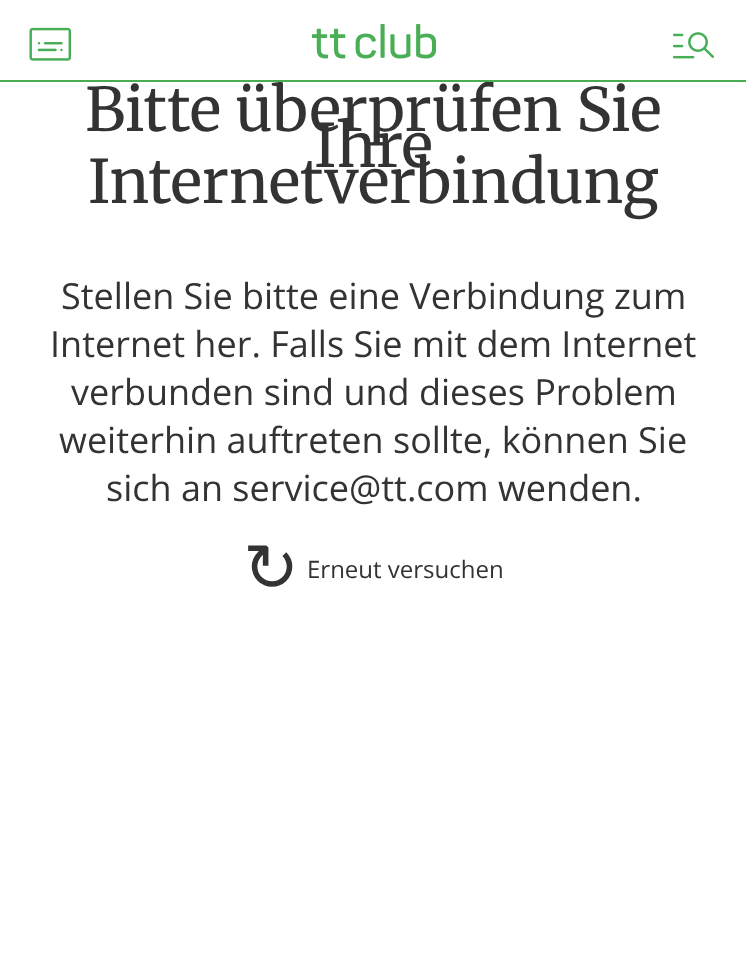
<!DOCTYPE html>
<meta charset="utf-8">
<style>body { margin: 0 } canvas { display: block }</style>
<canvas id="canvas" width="746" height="958"></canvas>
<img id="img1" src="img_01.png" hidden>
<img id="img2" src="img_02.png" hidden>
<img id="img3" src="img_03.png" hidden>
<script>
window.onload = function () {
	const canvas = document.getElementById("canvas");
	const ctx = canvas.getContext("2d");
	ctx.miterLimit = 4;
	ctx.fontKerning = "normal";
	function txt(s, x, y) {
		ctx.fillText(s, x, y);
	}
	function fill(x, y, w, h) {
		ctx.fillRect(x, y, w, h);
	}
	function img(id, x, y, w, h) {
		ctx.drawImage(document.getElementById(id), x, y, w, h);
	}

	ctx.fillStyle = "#FFFFFF";
	fill(0, 0, 746, 958);
	img("img1", 29, 27, 43, 34);
	img("img2", 312, 24, 124, 35);
	img("img3", 673, 32, 41, 27);
	ctx.font = "60px Merriweather";
	ctx.fillStyle = "#333333";
	txt("Bitte überprüfen Sie", 85, 131);
	ctx.fillStyle = "#47AE56";
	fill(0, 80, 746, 2);
	ctx.fillStyle = "#333333";
	txt("Ihre", 314, 167);
	txt("Internetverbindung", 88, 203);
	ctx.font = "36px Open Sans";
	txt("Stellen Sie bitte eine Verbindung zum", 61, 309);
	txt("Internet her. Falls Sie mit dem Internet", 50, 357);
	txt("verbunden sind und dieses Problem", 71, 405);
	txt("weiterhin auftreten sollte, können Sie", 59, 453);
	txt("sich an service@tt.com wenden.", 106, 501);
	ctx.font = "67px DejaVu Sans";
	txt("↻", 243, 591);
	ctx.font = "24px Open Sans";
	txt("Erneut versuchen", 307, 578);
};
</script>
